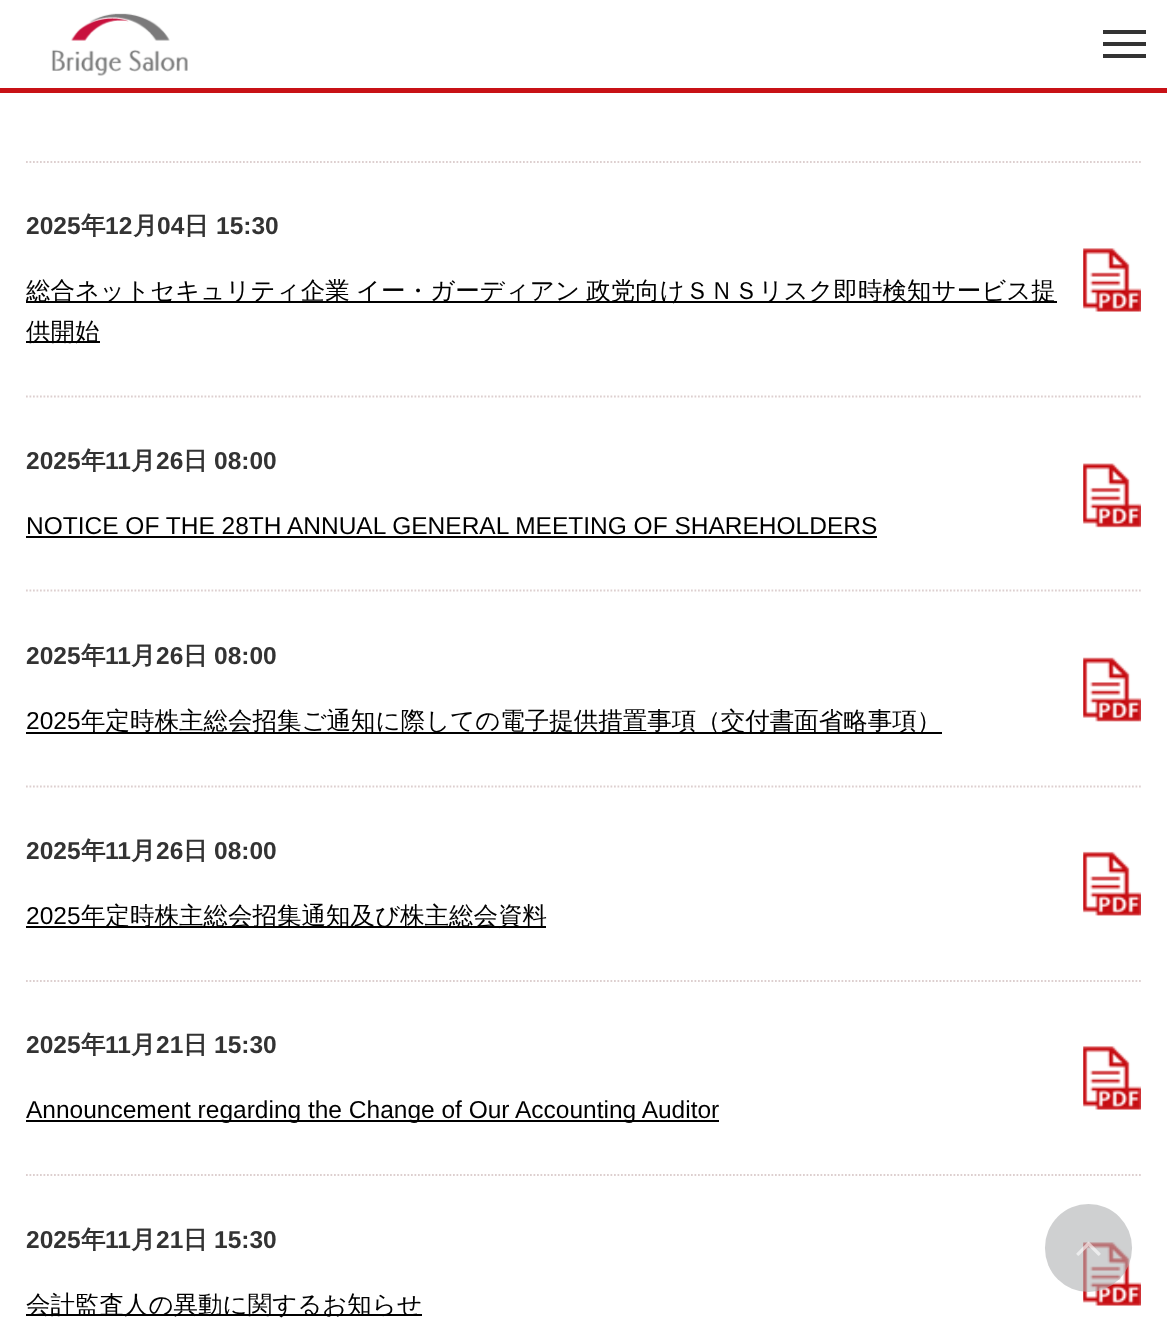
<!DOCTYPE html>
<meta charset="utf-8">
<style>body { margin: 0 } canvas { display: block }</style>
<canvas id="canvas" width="1167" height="1325"></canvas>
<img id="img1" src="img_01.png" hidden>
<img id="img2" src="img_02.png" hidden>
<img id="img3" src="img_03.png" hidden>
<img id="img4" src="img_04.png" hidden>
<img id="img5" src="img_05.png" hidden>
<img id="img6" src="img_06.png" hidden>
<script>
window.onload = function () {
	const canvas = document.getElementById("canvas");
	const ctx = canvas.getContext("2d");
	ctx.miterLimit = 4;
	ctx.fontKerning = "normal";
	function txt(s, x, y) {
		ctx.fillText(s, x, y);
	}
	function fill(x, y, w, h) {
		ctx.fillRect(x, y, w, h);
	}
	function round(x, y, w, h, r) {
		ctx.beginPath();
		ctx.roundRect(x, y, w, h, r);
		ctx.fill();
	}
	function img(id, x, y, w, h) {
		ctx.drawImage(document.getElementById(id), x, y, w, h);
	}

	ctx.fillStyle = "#FFFFFF";
	fill(0, 0, 1167, 1325);
	ctx.fillStyle = "#C81116";
	fill(0, 88, 1167, 5);
	img("img1", 51, 13, 137, 63);
	ctx.fillStyle = "#333333";
	fill(1103, 30, 43, 4);
	fill(1103, 42, 43, 4);
	fill(1103, 54, 43, 4);
	ctx.beginPath();
	ctx.moveTo(26, 162);
	ctx.lineTo(1141, 162);
	ctx.strokeStyle = "#DDCFCF";
	ctx.lineWidth = 1.8;
	ctx.setLineDash([1.75, 1.75]);
	ctx.stroke();
	ctx.beginPath();
	ctx.moveTo(26, 396.5);
	ctx.lineTo(1141, 396.5);
	ctx.stroke();
	ctx.fillStyle = "#000000";
	fill(26, 301, 1031, 2);
	fill(26, 341, 74, 2);
	img("img2", 1083, 248, 58, 64);
	ctx.beginPath();
	ctx.moveTo(26, 590.5);
	ctx.lineTo(1141, 590.5);
	ctx.stroke();
	fill(26, 536, 851, 2);
	img("img3", 1083, 463, 58, 65);
	ctx.beginPath();
	ctx.moveTo(26, 786.5);
	ctx.lineTo(1141, 786.5);
	ctx.stroke();
	fill(26, 732, 916, 2);
	img("img4", 1083, 657, 58, 65);
	ctx.beginPath();
	ctx.moveTo(26, 981);
	ctx.lineTo(1141, 981);
	ctx.stroke();
	fill(26, 926, 520, 2);
	img("img5", 1083, 851, 58, 65);
	ctx.beginPath();
	ctx.moveTo(26, 1175);
	ctx.lineTo(1141, 1175);
	ctx.stroke();
	fill(26, 1120, 693, 2);
	img("img2", 1083, 1046, 58, 64);
	fill(26, 1314, 396, 2);
	img("img2", 1083, 1242, 58, 64);
	ctx.fillStyle = "rgba(175, 177, 179, 0.6)";
	round(1045, 1204, 87, 88, 43.5);
	img("img6", 1076, 1241, 25, 15);
	ctx.font = "bold 24.5px Liberation Sans";
	ctx.fillStyle = "#333333";
	txt("2025", 26, 234);
	ctx.font = "bold 24.5px WenQuanYi Zen Hei";
	txt("年", 81, 234);
	ctx.font = "bold 24.5px Liberation Sans";
	txt("12", 105, 234);
	ctx.font = "bold 24.5px WenQuanYi Zen Hei";
	txt("月", 133, 234);
	ctx.font = "bold 24.5px Liberation Sans";
	txt("04", 157, 234);
	ctx.font = "bold 24.5px WenQuanYi Zen Hei";
	txt("日", 184, 234);
	ctx.font = "bold 24.5px Liberation Sans";
	txt("15:30", 216, 234);
	ctx.wordSpacing = "-1px";
	ctx.font = "500 24.5px WenQuanYi Zen Hei";
	ctx.fillStyle = "#000000";
	txt("総合ネットセキュリティ企業 イー・ガーディアン 政党向けＳＮＳリスク即時検知サービス提", 26, 299);
	ctx.wordSpacing = "0px";
	txt("供開始", 26, 340);
	ctx.font = "bold 24.5px Liberation Sans";
	ctx.fillStyle = "#333333";
	txt("2025", 26, 469);
	ctx.font = "bold 24.5px WenQuanYi Zen Hei";
	txt("年", 81, 469);
	ctx.font = "bold 24.5px Liberation Sans";
	txt("11", 105, 469);
	ctx.font = "bold 24.5px WenQuanYi Zen Hei";
	txt("月", 131, 469);
	ctx.font = "bold 24.5px Liberation Sans";
	txt("26", 156, 469);
	ctx.font = "bold 24.5px WenQuanYi Zen Hei";
	txt("日", 183, 469);
	ctx.font = "bold 24.5px Liberation Sans";
	txt("08:00", 214, 469);
	ctx.font = "24.5px Liberation Sans";
	ctx.fillStyle = "#000000";
	txt("NOTICE OF THE 28TH ANNUAL GENERAL MEETING OF SHAREHOLDERS", 26, 534);
	ctx.font = "bold 24.5px Liberation Sans";
	ctx.fillStyle = "#333333";
	txt("2025", 26, 664);
	ctx.font = "bold 24.5px WenQuanYi Zen Hei";
	txt("年", 81, 664);
	ctx.font = "bold 24.5px Liberation Sans";
	txt("11", 105, 664);
	ctx.font = "bold 24.5px WenQuanYi Zen Hei";
	txt("月", 131, 664);
	ctx.font = "bold 24.5px Liberation Sans";
	txt("26", 156, 664);
	ctx.font = "bold 24.5px WenQuanYi Zen Hei";
	txt("日", 183, 664);
	ctx.font = "bold 24.5px Liberation Sans";
	txt("08:00", 214, 664);
	ctx.font = "24.5px Liberation Sans";
	ctx.fillStyle = "#000000";
	txt("2025", 26, 729);
	ctx.font = "500 24.5px WenQuanYi Zen Hei";
	txt("年定時株主総会招集ご通知に際しての電子提供措置事項（交付書面省略事項）", 81, 729);
	ctx.font = "bold 24.5px Liberation Sans";
	ctx.fillStyle = "#333333";
	txt("2025", 26, 859);
	ctx.font = "bold 24.5px WenQuanYi Zen Hei";
	txt("年", 81, 859);
	ctx.font = "bold 24.5px Liberation Sans";
	txt("11", 105, 859);
	ctx.font = "bold 24.5px WenQuanYi Zen Hei";
	txt("月", 131, 859);
	ctx.font = "bold 24.5px Liberation Sans";
	txt("26", 156, 859);
	ctx.font = "bold 24.5px WenQuanYi Zen Hei";
	txt("日", 183, 859);
	ctx.font = "bold 24.5px Liberation Sans";
	txt("08:00", 214, 859);
	ctx.font = "24.5px Liberation Sans";
	ctx.fillStyle = "#000000";
	txt("2025", 26, 924);
	ctx.font = "500 24.5px WenQuanYi Zen Hei";
	txt("年定時株主総会招集通知及び株主総会資料", 81, 924);
	ctx.font = "bold 24.5px Liberation Sans";
	ctx.fillStyle = "#333333";
	txt("2025", 26, 1053);
	ctx.font = "bold 24.5px WenQuanYi Zen Hei";
	txt("年", 81, 1053);
	ctx.font = "bold 24.5px Liberation Sans";
	txt("11", 105, 1053);
	ctx.font = "bold 24.5px WenQuanYi Zen Hei";
	txt("月", 131, 1053);
	ctx.font = "bold 24.5px Liberation Sans";
	txt("21", 156, 1053);
	ctx.font = "bold 24.5px WenQuanYi Zen Hei";
	txt("日", 183, 1053);
	ctx.font = "bold 24.5px Liberation Sans";
	txt("15:30", 214, 1053);
	ctx.font = "24.5px Liberation Sans";
	ctx.fillStyle = "#000000";
	txt("Announcement regarding the Change of Our Accounting Auditor", 26, 1118);
	ctx.font = "bold 24.5px Liberation Sans";
	ctx.fillStyle = "#333333";
	txt("2025", 26, 1248);
	ctx.font = "bold 24.5px WenQuanYi Zen Hei";
	txt("年", 81, 1248);
	ctx.font = "bold 24.5px Liberation Sans";
	txt("11", 105, 1248);
	ctx.font = "bold 24.5px WenQuanYi Zen Hei";
	txt("月", 131, 1248);
	ctx.font = "bold 24.5px Liberation Sans";
	txt("21", 156, 1248);
	ctx.font = "bold 24.5px WenQuanYi Zen Hei";
	txt("日", 183, 1248);
	ctx.font = "bold 24.5px Liberation Sans";
	txt("15:30", 214, 1248);
	ctx.font = "500 24.5px WenQuanYi Zen Hei";
	ctx.fillStyle = "#000000";
	txt("会計監査人の異動に関するお知らせ", 26, 1313);
};
</script>
